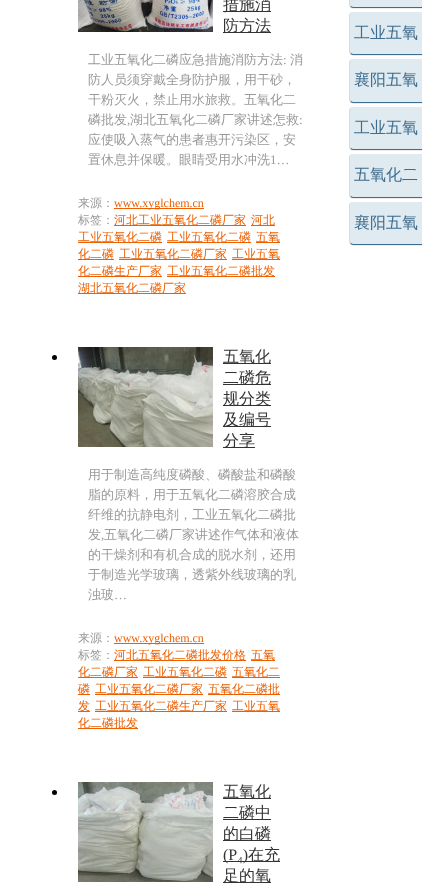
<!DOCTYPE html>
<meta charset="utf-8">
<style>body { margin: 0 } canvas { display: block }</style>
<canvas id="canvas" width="430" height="890"></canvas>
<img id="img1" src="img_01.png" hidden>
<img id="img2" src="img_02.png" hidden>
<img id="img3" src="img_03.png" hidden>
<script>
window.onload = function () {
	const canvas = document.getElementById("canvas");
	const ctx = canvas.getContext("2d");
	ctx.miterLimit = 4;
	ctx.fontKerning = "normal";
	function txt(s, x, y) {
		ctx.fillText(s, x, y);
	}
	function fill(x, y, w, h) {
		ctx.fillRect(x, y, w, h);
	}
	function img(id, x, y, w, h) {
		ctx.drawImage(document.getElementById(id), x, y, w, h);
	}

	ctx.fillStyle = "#FFFFFF";
	fill(0, 0, 430, 890);
	img("img1", 78, 0, 135, 32);
	ctx.fillStyle = "#333333";
	fill(223, 11, 48, 1);
	fill(223, 32, 48, 1);
	ctx.fillStyle = "#ED5F01";
	fill(114, 208, 90, 1);
	fill(114, 225, 132, 1);
	fill(251, 225, 24, 1);
	fill(78, 242, 84, 1);
	fill(167, 242, 84, 1);
	fill(256, 242, 24, 1);
	fill(78, 259, 36, 1);
	fill(119, 259, 108, 1);
	fill(232, 259, 48, 1);
	fill(78, 276, 84, 1);
	fill(167, 276, 108, 1);
	fill(78, 293, 108, 1);
	ctx.fillStyle = "#000000";
	ctx.beginPath();
	ctx.arc(54.5, 357.5, 2.5, 0, Math.PI * 2);
	ctx.fill();
	img("img2", 78, 347, 135, 100);
	ctx.fillStyle = "#333333";
	fill(223, 363, 48, 1);
	fill(223, 384, 48, 1);
	fill(223, 405, 48, 1);
	fill(223, 426, 48, 1);
	fill(223, 447, 32, 1);
	ctx.fillStyle = "#ED5F01";
	fill(114, 643, 90, 1);
	fill(114, 660, 132, 1);
	fill(251, 660, 24, 1);
	fill(78, 677, 60, 1);
	fill(143, 677, 84, 1);
	fill(232, 677, 48, 1);
	fill(78, 694, 12, 1);
	fill(95, 694, 108, 1);
	fill(208, 694, 72, 1);
	fill(78, 711, 12, 1);
	fill(95, 711, 132, 1);
	fill(232, 711, 48, 1);
	fill(78, 728, 60, 1);
	ctx.fillStyle = "#000000";
	ctx.beginPath();
	ctx.arc(54.5, 792.5, 2.5, 0, Math.PI * 2);
	ctx.fill();
	img("img3", 78, 782, 135, 100);
	ctx.fillStyle = "#333333";
	fill(223, 798, 48, 1);
	fill(223, 819, 48, 1);
	fill(223, 840, 48, 1);
	fill(223, 861, 57, 1);
	fill(223, 882, 48, 1);
	ctx.save();
	ctx.beginPath();
	ctx.rect(8, 0, 414, 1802);
	ctx.clip();
	ctx.fillStyle = "#EEEEEE";
	ctx.beginPath();
	ctx.moveTo(349, 4);
	ctx.lineTo(349, 5);
	ctx.bezierCurveTo(349, 7, 351, 9, 353, 9);
	ctx.lineTo(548, 9);
	ctx.bezierCurveTo(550, 9, 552, 7, 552, 5);
	ctx.lineTo(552, 4);
	ctx.bezierCurveTo(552, 6, 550, 8, 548, 8);
	ctx.lineTo(353, 8);
	ctx.bezierCurveTo(351, 8, 349, 6, 349, 4);
	ctx.closePath();
	ctx.fill();
	ctx.restore();
	ctx.fillStyle = "#E0EAF1";
	ctx.beginPath();
	ctx.moveTo(353, -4);
	ctx.lineTo(422, -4);
	ctx.lineTo(422, 8);
	ctx.lineTo(353, 8);
	ctx.bezierCurveTo(351, 8, 349, 6, 349, 4);
	ctx.lineTo(349, 0);
	ctx.bezierCurveTo(349, -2, 351, -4, 353, -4);
	ctx.closePath();
	ctx.fill();
	ctx.save();
	ctx.beginPath();
	ctx.rect(8, 0, 414, 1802);
	ctx.clip();
	ctx.fillStyle = "#3E6D8E";
	ctx.beginPath();
	ctx.moveTo(353, 8);
	ctx.lineTo(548, 8);
	ctx.bezierCurveTo(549, 8, 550, 8, 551, 7);
	ctx.lineTo(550, 6);
	ctx.lineTo(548, 7);
	ctx.lineTo(353, 7);
	ctx.lineTo(351, 6);
	ctx.lineTo(350, 7);
	ctx.closePath();
	ctx.fill();
	ctx.restore();
	ctx.fillStyle = "#DBDBD5";
	ctx.beginPath();
	ctx.moveTo(349, -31);
	ctx.lineTo(349, 4);
	ctx.bezierCurveTo(349, 5, 350, 6, 350, 7);
	ctx.lineTo(351, 6);
	ctx.lineTo(350, 4);
	ctx.lineTo(350, -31);
	ctx.bezierCurveTo(350, -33, 351, -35, 353, -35);
	ctx.bezierCurveTo(351, -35, 349, -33, 349, -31);
	ctx.closePath();
	ctx.fill();
	ctx.save();
	ctx.beginPath();
	ctx.rect(8, 0, 414, 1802);
	ctx.clip();
	ctx.fillStyle = "#EEEEEE";
	ctx.beginPath();
	ctx.moveTo(349, 51);
	ctx.lineTo(349, 52);
	ctx.bezierCurveTo(349, 54, 351, 56, 353, 56);
	ctx.lineTo(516, 56);
	ctx.bezierCurveTo(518, 56, 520, 54, 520, 52);
	ctx.lineTo(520, 51);
	ctx.bezierCurveTo(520, 53, 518, 55, 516, 55);
	ctx.lineTo(353, 55);
	ctx.bezierCurveTo(351, 55, 349, 53, 349, 51);
	ctx.closePath();
	ctx.fill();
	ctx.restore();
	ctx.fillStyle = "#E0EAF1";
	ctx.beginPath();
	ctx.roundRect(349, 12, 73, 43, [4, 0, 0, 4]);
	ctx.fill();
	ctx.save();
	ctx.beginPath();
	ctx.rect(8, 0, 414, 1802);
	ctx.clip();
	ctx.fillStyle = "#3E6D8E";
	ctx.beginPath();
	ctx.moveTo(353, 55);
	ctx.lineTo(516, 55);
	ctx.lineTo(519, 54);
	ctx.lineTo(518, 53);
	ctx.lineTo(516, 54);
	ctx.lineTo(353, 54);
	ctx.lineTo(351, 53);
	ctx.lineTo(350, 54);
	ctx.closePath();
	ctx.fill();
	ctx.restore();
	ctx.fillStyle = "#DBDBD5";
	ctx.beginPath();
	ctx.moveTo(349, 16);
	ctx.lineTo(349, 51);
	ctx.bezierCurveTo(349, 52, 350, 53, 350, 54);
	ctx.lineTo(351, 53);
	ctx.lineTo(350, 51);
	ctx.lineTo(350, 16);
	ctx.bezierCurveTo(350, 14, 351, 12, 353, 12);
	ctx.bezierCurveTo(351, 12, 349, 14, 349, 16);
	ctx.closePath();
	ctx.fill();
	ctx.save();
	ctx.beginPath();
	ctx.rect(8, 0, 414, 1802);
	ctx.clip();
	ctx.fillStyle = "#EEEEEE";
	ctx.beginPath();
	ctx.moveTo(349, 99);
	ctx.lineTo(349, 100);
	ctx.bezierCurveTo(349, 102, 351, 104, 353, 104);
	ctx.lineTo(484, 104);
	ctx.bezierCurveTo(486, 104, 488, 102, 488, 100);
	ctx.lineTo(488, 99);
	ctx.bezierCurveTo(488, 101, 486, 103, 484, 103);
	ctx.lineTo(353, 103);
	ctx.bezierCurveTo(351, 103, 349, 101, 349, 99);
	ctx.closePath();
	ctx.fill();
	ctx.restore();
	ctx.fillStyle = "#E0EAF1";
	ctx.beginPath();
	ctx.roundRect(349, 59, 73, 44, [4, 0, 0, 4]);
	ctx.fill();
	ctx.save();
	ctx.beginPath();
	ctx.rect(8, 0, 414, 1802);
	ctx.clip();
	ctx.fillStyle = "#3E6D8E";
	ctx.beginPath();
	ctx.moveTo(353, 103);
	ctx.lineTo(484, 103);
	ctx.lineTo(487, 102);
	ctx.lineTo(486, 101);
	ctx.lineTo(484, 102);
	ctx.lineTo(353, 102);
	ctx.lineTo(351, 101);
	ctx.lineTo(350, 102);
	ctx.closePath();
	ctx.fill();
	ctx.restore();
	ctx.fillStyle = "#DBDBD5";
	ctx.beginPath();
	ctx.moveTo(349, 63);
	ctx.lineTo(349, 99);
	ctx.bezierCurveTo(349, 100, 350, 101, 350, 102);
	ctx.lineTo(351, 101);
	ctx.lineTo(350, 99);
	ctx.lineTo(350, 63);
	ctx.bezierCurveTo(350, 61, 351, 59, 353, 59);
	ctx.bezierCurveTo(351, 59, 349, 61, 349, 63);
	ctx.closePath();
	ctx.fill();
	ctx.save();
	ctx.beginPath();
	ctx.rect(8, 0, 414, 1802);
	ctx.clip();
	ctx.fillStyle = "#EEEEEE";
	ctx.beginPath();
	ctx.moveTo(349, 146);
	ctx.lineTo(349, 147);
	ctx.bezierCurveTo(349, 149, 351, 151, 353, 151);
	ctx.lineTo(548, 151);
	ctx.bezierCurveTo(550, 151, 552, 149, 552, 147);
	ctx.lineTo(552, 146);
	ctx.bezierCurveTo(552, 148, 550, 150, 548, 150);
	ctx.lineTo(353, 150);
	ctx.bezierCurveTo(351, 150, 349, 148, 349, 146);
	ctx.closePath();
	ctx.fill();
	ctx.restore();
	ctx.fillStyle = "#E0EAF1";
	ctx.beginPath();
	ctx.roundRect(349, 107, 73, 43, [4, 0, 0, 4]);
	ctx.fill();
	ctx.save();
	ctx.beginPath();
	ctx.rect(8, 0, 414, 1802);
	ctx.clip();
	ctx.fillStyle = "#3E6D8E";
	ctx.beginPath();
	ctx.moveTo(353, 150);
	ctx.lineTo(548, 150);
	ctx.bezierCurveTo(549, 150, 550, 150, 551, 149);
	ctx.lineTo(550, 148);
	ctx.lineTo(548, 149);
	ctx.lineTo(353, 149);
	ctx.lineTo(351, 148);
	ctx.lineTo(350, 149);
	ctx.closePath();
	ctx.fill();
	ctx.restore();
	ctx.fillStyle = "#DBDBD5";
	ctx.beginPath();
	ctx.moveTo(349, 111);
	ctx.lineTo(349, 146);
	ctx.bezierCurveTo(349, 147, 350, 148, 350, 149);
	ctx.lineTo(351, 148);
	ctx.lineTo(350, 146);
	ctx.lineTo(350, 111);
	ctx.bezierCurveTo(350, 109, 351, 107, 353, 107);
	ctx.bezierCurveTo(351, 107, 349, 109, 349, 111);
	ctx.closePath();
	ctx.fill();
	ctx.save();
	ctx.beginPath();
	ctx.rect(8, 0, 414, 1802);
	ctx.clip();
	ctx.fillStyle = "#EEEEEE";
	ctx.beginPath();
	ctx.moveTo(349, 194);
	ctx.lineTo(349, 195);
	ctx.bezierCurveTo(349, 197, 351, 199, 353, 199);
	ctx.lineTo(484, 199);
	ctx.bezierCurveTo(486, 199, 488, 197, 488, 195);
	ctx.lineTo(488, 194);
	ctx.bezierCurveTo(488, 196, 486, 198, 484, 198);
	ctx.lineTo(353, 198);
	ctx.bezierCurveTo(351, 198, 349, 196, 349, 194);
	ctx.closePath();
	ctx.fill();
	ctx.restore();
	ctx.fillStyle = "#E0EAF1";
	ctx.beginPath();
	ctx.roundRect(349, 154, 73, 44, [4, 0, 0, 4]);
	ctx.fill();
	ctx.save();
	ctx.beginPath();
	ctx.rect(8, 0, 414, 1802);
	ctx.clip();
	ctx.fillStyle = "#3E6D8E";
	ctx.beginPath();
	ctx.moveTo(353, 198);
	ctx.lineTo(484, 198);
	ctx.lineTo(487, 197);
	ctx.lineTo(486, 196);
	ctx.lineTo(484, 197);
	ctx.lineTo(353, 197);
	ctx.lineTo(351, 196);
	ctx.lineTo(350, 197);
	ctx.closePath();
	ctx.fill();
	ctx.restore();
	ctx.fillStyle = "#DBDBD5";
	ctx.beginPath();
	ctx.moveTo(349, 158);
	ctx.lineTo(349, 194);
	ctx.bezierCurveTo(349, 195, 350, 196, 350, 197);
	ctx.lineTo(351, 196);
	ctx.lineTo(350, 194);
	ctx.lineTo(350, 158);
	ctx.bezierCurveTo(350, 156, 351, 154, 353, 154);
	ctx.bezierCurveTo(351, 154, 349, 156, 349, 158);
	ctx.closePath();
	ctx.fill();
	ctx.save();
	ctx.beginPath();
	ctx.rect(8, 0, 414, 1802);
	ctx.clip();
	ctx.fillStyle = "#EEEEEE";
	ctx.beginPath();
	ctx.moveTo(349, 241);
	ctx.lineTo(349, 242);
	ctx.bezierCurveTo(349, 244, 351, 246, 353, 246);
	ctx.lineTo(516, 246);
	ctx.bezierCurveTo(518, 246, 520, 244, 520, 242);
	ctx.lineTo(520, 241);
	ctx.bezierCurveTo(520, 243, 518, 245, 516, 245);
	ctx.lineTo(353, 245);
	ctx.bezierCurveTo(351, 245, 349, 243, 349, 241);
	ctx.closePath();
	ctx.fill();
	ctx.restore();
	ctx.fillStyle = "#E0EAF1";
	ctx.beginPath();
	ctx.roundRect(349, 202, 73, 43, [4, 0, 0, 4]);
	ctx.fill();
	ctx.save();
	ctx.beginPath();
	ctx.rect(8, 0, 414, 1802);
	ctx.clip();
	ctx.fillStyle = "#3E6D8E";
	ctx.beginPath();
	ctx.moveTo(353, 245);
	ctx.lineTo(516, 245);
	ctx.lineTo(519, 244);
	ctx.lineTo(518, 243);
	ctx.lineTo(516, 244);
	ctx.lineTo(353, 244);
	ctx.lineTo(351, 243);
	ctx.lineTo(350, 244);
	ctx.closePath();
	ctx.fill();
	ctx.restore();
	ctx.fillStyle = "#DBDBD5";
	ctx.beginPath();
	ctx.moveTo(349, 206);
	ctx.lineTo(349, 241);
	ctx.bezierCurveTo(349, 242, 350, 243, 350, 244);
	ctx.lineTo(351, 243);
	ctx.lineTo(350, 241);
	ctx.lineTo(350, 206);
	ctx.bezierCurveTo(350, 204, 351, 202, 353, 202);
	ctx.bezierCurveTo(351, 202, 349, 204, 349, 206);
	ctx.closePath();
	ctx.fill();
	ctx.font = "500 16px WenQuanYi Zen Hei";
	ctx.fillStyle = "#333333";
	txt("措施消", 223, 10);
	txt("防方法", 223, 31);
	ctx.font = "500 13px WenQuanYi Zen Hei";
	ctx.fillStyle = "#999999";
	txt("工业五氧化二磷应急措施消防方法", 88, 64);
	ctx.font = "13px Liberation Serif";
	txt(":", 283, 64);
	ctx.font = "500 13px WenQuanYi Zen Hei";
	txt("消", 290, 64);
	txt("防人员须穿戴全身防护服，用干砂，", 88, 84);
	txt("干粉灭火，禁止用水旅救。五氧化二", 88, 104);
	txt("磷批发", 88, 124);
	ctx.font = "13px Liberation Serif";
	txt(",", 127, 124);
	ctx.font = "500 13px WenQuanYi Zen Hei";
	txt("湖北五氧化二磷厂家讲述怎救", 130, 124);
	ctx.font = "13px Liberation Serif";
	txt(":", 299, 124);
	ctx.font = "500 13px WenQuanYi Zen Hei";
	txt("应使吸入蒸气的患者惠开污染区，安", 88, 144);
	txt("置休息并保暖。眼睛受用水冲洗", 88, 164);
	ctx.font = "13px Liberation Serif";
	txt("1…", 270, 164);
	ctx.font = "500 12px WenQuanYi Zen Hei";
	txt("来源：", 78, 207);
	ctx.font = "12px Liberation Serif";
	ctx.fillStyle = "#ED5F01";
	txt("www.xyglchem.cn", 114, 207);
	ctx.font = "500 12px WenQuanYi Zen Hei";
	ctx.fillStyle = "#999999";
	txt("标签：", 78, 224);
	ctx.fillStyle = "#ED5F01";
	txt("河北工业五氧化二磷厂家", 114, 224);
	txt("河北", 251, 224);
	txt("工业五氧化二磷", 78, 241);
	txt("工业五氧化二磷", 167, 241);
	txt("五氧", 256, 241);
	txt("化二磷", 78, 258);
	txt("工业五氧化二磷厂家", 119, 258);
	txt("工业五氧", 232, 258);
	txt("化二磷生产厂家", 78, 275);
	txt("工业五氧化二磷批发", 167, 275);
	txt("湖北五氧化二磷厂家", 78, 292);
	ctx.font = "500 16px WenQuanYi Zen Hei";
	ctx.fillStyle = "#333333";
	txt("五氧化", 223, 362);
	txt("二磷危", 223, 383);
	txt("规分类", 223, 404);
	txt("及编号", 223, 425);
	txt("分享", 223, 446);
	ctx.font = "500 13px WenQuanYi Zen Hei";
	ctx.fillStyle = "#999999";
	txt("用于制造高纯度磷酸、磷酸盐和磷酸", 88, 479);
	txt("脂的原料，用于五氧化二磷溶胶合成", 88, 499);
	txt("纤维的抗静电剂，工业五氧化二磷批", 88, 519);
	txt("发", 88, 539);
	ctx.font = "13px Liberation Serif";
	txt(",", 101, 539);
	ctx.font = "500 13px WenQuanYi Zen Hei";
	txt("五氧化二磷厂家讲述作气体和液体", 104, 539);
	txt("的干燥剂和有机合成的脱水剂，还用", 88, 559);
	txt("于制造光学玻璃，透紫外线玻璃的乳", 88, 579);
	txt("浊玻", 88, 599);
	ctx.font = "13px Liberation Serif";
	txt("…", 114, 599);
	ctx.font = "500 12px WenQuanYi Zen Hei";
	txt("来源：", 78, 642);
	ctx.font = "12px Liberation Serif";
	ctx.fillStyle = "#ED5F01";
	txt("www.xyglchem.cn", 114, 642);
	ctx.font = "500 12px WenQuanYi Zen Hei";
	ctx.fillStyle = "#999999";
	txt("标签：", 78, 659);
	ctx.fillStyle = "#ED5F01";
	txt("河北五氧化二磷批发价格", 114, 659);
	txt("五氧", 251, 659);
	txt("化二磷厂家", 78, 676);
	txt("工业五氧化二磷", 143, 676);
	txt("五氧化二", 232, 676);
	txt("磷", 78, 693);
	txt("工业五氧化二磷厂家", 95, 693);
	txt("五氧化二磷批", 208, 693);
	txt("发", 78, 710);
	txt("工业五氧化二磷生产厂家", 95, 710);
	txt("工业五氧", 232, 710);
	txt("化二磷批发", 78, 727);
	ctx.font = "500 16px WenQuanYi Zen Hei";
	ctx.fillStyle = "#333333";
	txt("五氧化", 223, 797);
	txt("二磷中", 223, 818);
	txt("的白磷", 223, 839);
	ctx.font = "16px Liberation Serif";
	txt("(P₄)", 223, 860);
	ctx.font = "500 16px WenQuanYi Zen Hei";
	txt("在充", 248, 860);
	txt("足的氧", 223, 881);
	ctx.fillStyle = "#3E6D8E";
	txt("工业五氧", 354, 38);
	txt("襄阳五氧", 354, 85);
	txt("工业五氧", 354, 133);
	txt("五氧化二", 354, 180);
	txt("襄阳五氧", 354, 228);
};
</script>
